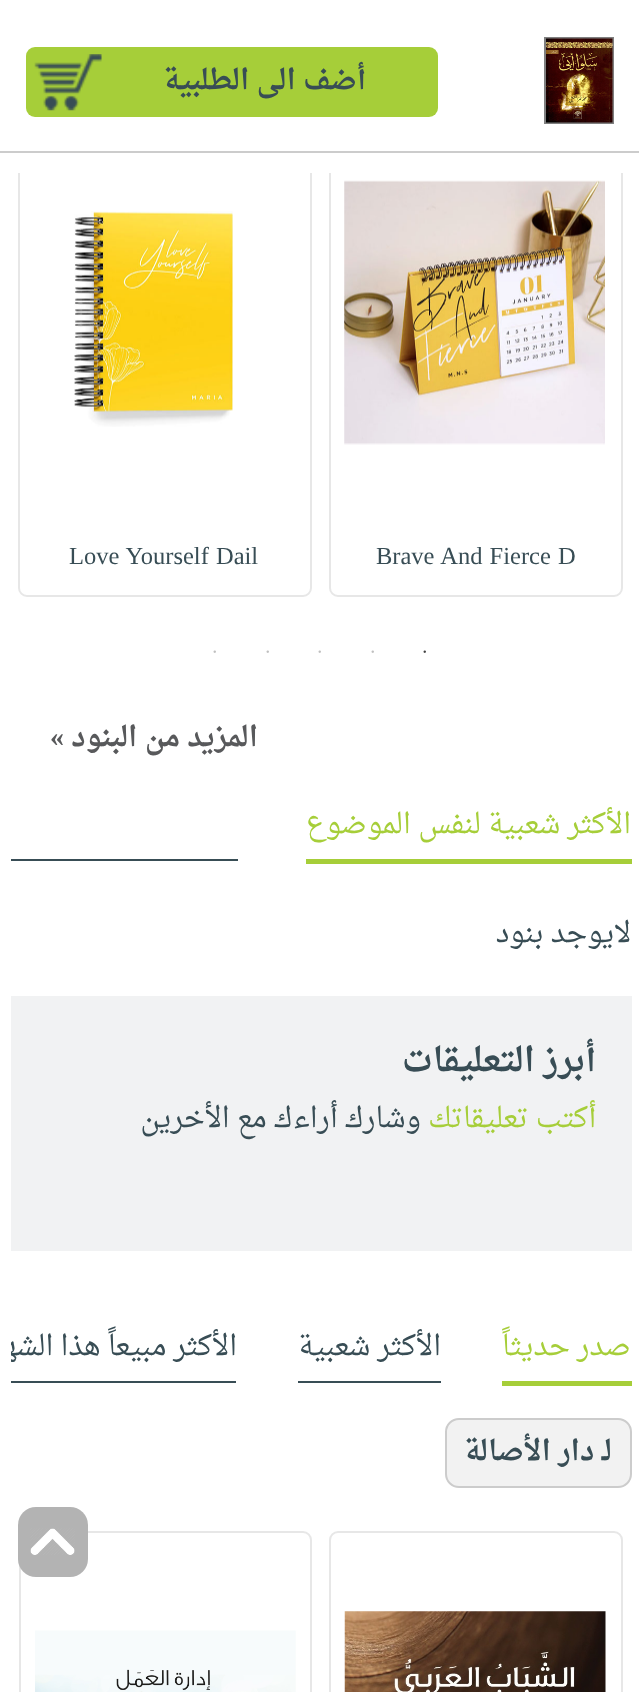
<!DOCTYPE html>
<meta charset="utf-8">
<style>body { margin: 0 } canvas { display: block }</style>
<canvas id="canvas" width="639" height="1692"></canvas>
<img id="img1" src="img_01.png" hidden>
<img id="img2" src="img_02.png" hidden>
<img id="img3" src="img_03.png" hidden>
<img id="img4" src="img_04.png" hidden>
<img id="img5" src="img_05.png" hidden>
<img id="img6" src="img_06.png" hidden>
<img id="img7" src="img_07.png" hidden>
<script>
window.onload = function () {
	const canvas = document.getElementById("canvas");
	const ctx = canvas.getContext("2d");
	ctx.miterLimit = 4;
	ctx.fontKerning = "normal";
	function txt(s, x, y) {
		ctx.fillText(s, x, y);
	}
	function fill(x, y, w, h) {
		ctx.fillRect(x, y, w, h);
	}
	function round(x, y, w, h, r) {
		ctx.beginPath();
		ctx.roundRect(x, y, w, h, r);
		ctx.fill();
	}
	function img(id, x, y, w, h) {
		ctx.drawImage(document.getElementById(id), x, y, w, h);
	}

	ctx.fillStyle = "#FFFFFF";
	fill(0, 0, 639, 1692);
	ctx.beginPath();
	ctx.roundRect(330, 31, 292, 565, 8);
	ctx.strokeStyle = "#E7E7E7";
	ctx.lineWidth = 2;
	ctx.stroke();
	ctx.beginPath();
	ctx.roundRect(19, 31, 292, 565, 8);
	ctx.stroke();
	fill(18, 30, 605, 143);
	ctx.fillStyle = "#CCCCCC";
	fill(0, 151, 639, 2);
	ctx.strokeStyle = "#808080";
	ctx.strokeRect(545, 38, 68, 85);
	img("img1", 546, 38, 67, 85);
	ctx.fillStyle = "#A6CE39";
	round(26, 47, 412, 70, 9);
	img("img2", 34, 54, 68, 57);
	img("img3", 344, 180, 261, 265);
	img("img4", 74, 211, 159, 216);
	fill(306, 859, 326, 5);
	ctx.fillStyle = "#384D55";
	fill(11, 859, 227, 2);
	ctx.fillStyle = "#F1F2F3";
	fill(11, 996, 621, 255);
	ctx.fillStyle = "#A6CE39";
	fill(502, 1381, 130, 5);
	ctx.fillStyle = "#384D55";
	fill(298, 1381, 143, 2);
	fill(11, 1381, 225, 2);
	ctx.fillStyle = "#F2F2F2";
	ctx.beginPath();
	ctx.roundRect(446, 1419, 185, 68, 13);
	ctx.fill();
	ctx.strokeStyle = "#CCCCCC";
	ctx.stroke();
	ctx.beginPath();
	ctx.roundRect(330, 1532, 292, 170, 8);
	ctx.strokeStyle = "#E7E7E7";
	ctx.stroke();
	img("img5", 344, 1611, 262, 81);
	ctx.beginPath();
	ctx.roundRect(20, 1532, 291, 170, 8);
	ctx.stroke();
	img("img6", 35, 1630, 261, 62);
	ctx.fillStyle = "#B3B3B3";
	round(18, 1507, 70, 70, 18);
	img("img7", 30, 1528, 45, 27);
	ctx.direction = "rtl";
	ctx.font = "bold 28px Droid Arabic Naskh";
	ctx.fillStyle = "#384D55";
	txt("أضف الى الطلبية", 366, 89);
	ctx.wordSpacing = "1px";
	ctx.direction = "ltr";
	ctx.font = "24.5px Liberation Serif";
	txt("Brave And Fierce D", 376, 564);
	txt("Love Yourself Dail", 69, 564);
	ctx.wordSpacing = "0px";
	ctx.font = "10px Liberation Serif";
	ctx.fillStyle = "#404040";
	txt("•", 423, 655);
	ctx.fillStyle = "#BFBFBF";
	txt("•", 371, 655);
	txt("•", 318, 655);
	txt("•", 266, 655);
	txt("•", 213, 655);
	ctx.direction = "rtl";
	ctx.font = "bold 28px Droid Arabic Naskh";
	ctx.fillStyle = "#58595B";
	txt("المزيد من البنود", 258, 746);
	ctx.font = "bold 28px Liberation Serif";
	txt("»", 64, 746);
	ctx.font = "28px Droid Arabic Naskh";
	ctx.fillStyle = "#A6CE39";
	txt("الأكثر شعبية لنفس الموضوع", 631, 833);
	ctx.fillStyle = "#384D55";
	txt("لايوجد بنود", 631, 942);
	ctx.font = "bold 33.25px Droid Arabic Naskh";
	txt("أبرز التعليقات", 596, 1071);
	ctx.font = "28px Droid Arabic Naskh";
	ctx.fillStyle = "#A6CE39";
	txt("أكتب تعليقاتك", 596, 1127);
	ctx.fillStyle = "#384D55";
	txt("وشارك أراءك مع الأخرين", 421, 1127);
	ctx.fillStyle = "#A6CE39";
	txt("صدر حديثاً", 631, 1355);
	ctx.fillStyle = "#384D55";
	txt("الأكثر شعبية", 441, 1355);
	ctx.save();
	ctx.beginPath();
	ctx.rect(11, 1321, 621, 105);
	ctx.clip();
	txt("الأكثر مبيعاً هذا الشهر", 237, 1355);
	ctx.restore();
	ctx.font = "bold 28px Droid Arabic Naskh";
	txt("لـ دار الأصالة", 612, 1460);
};
</script>
